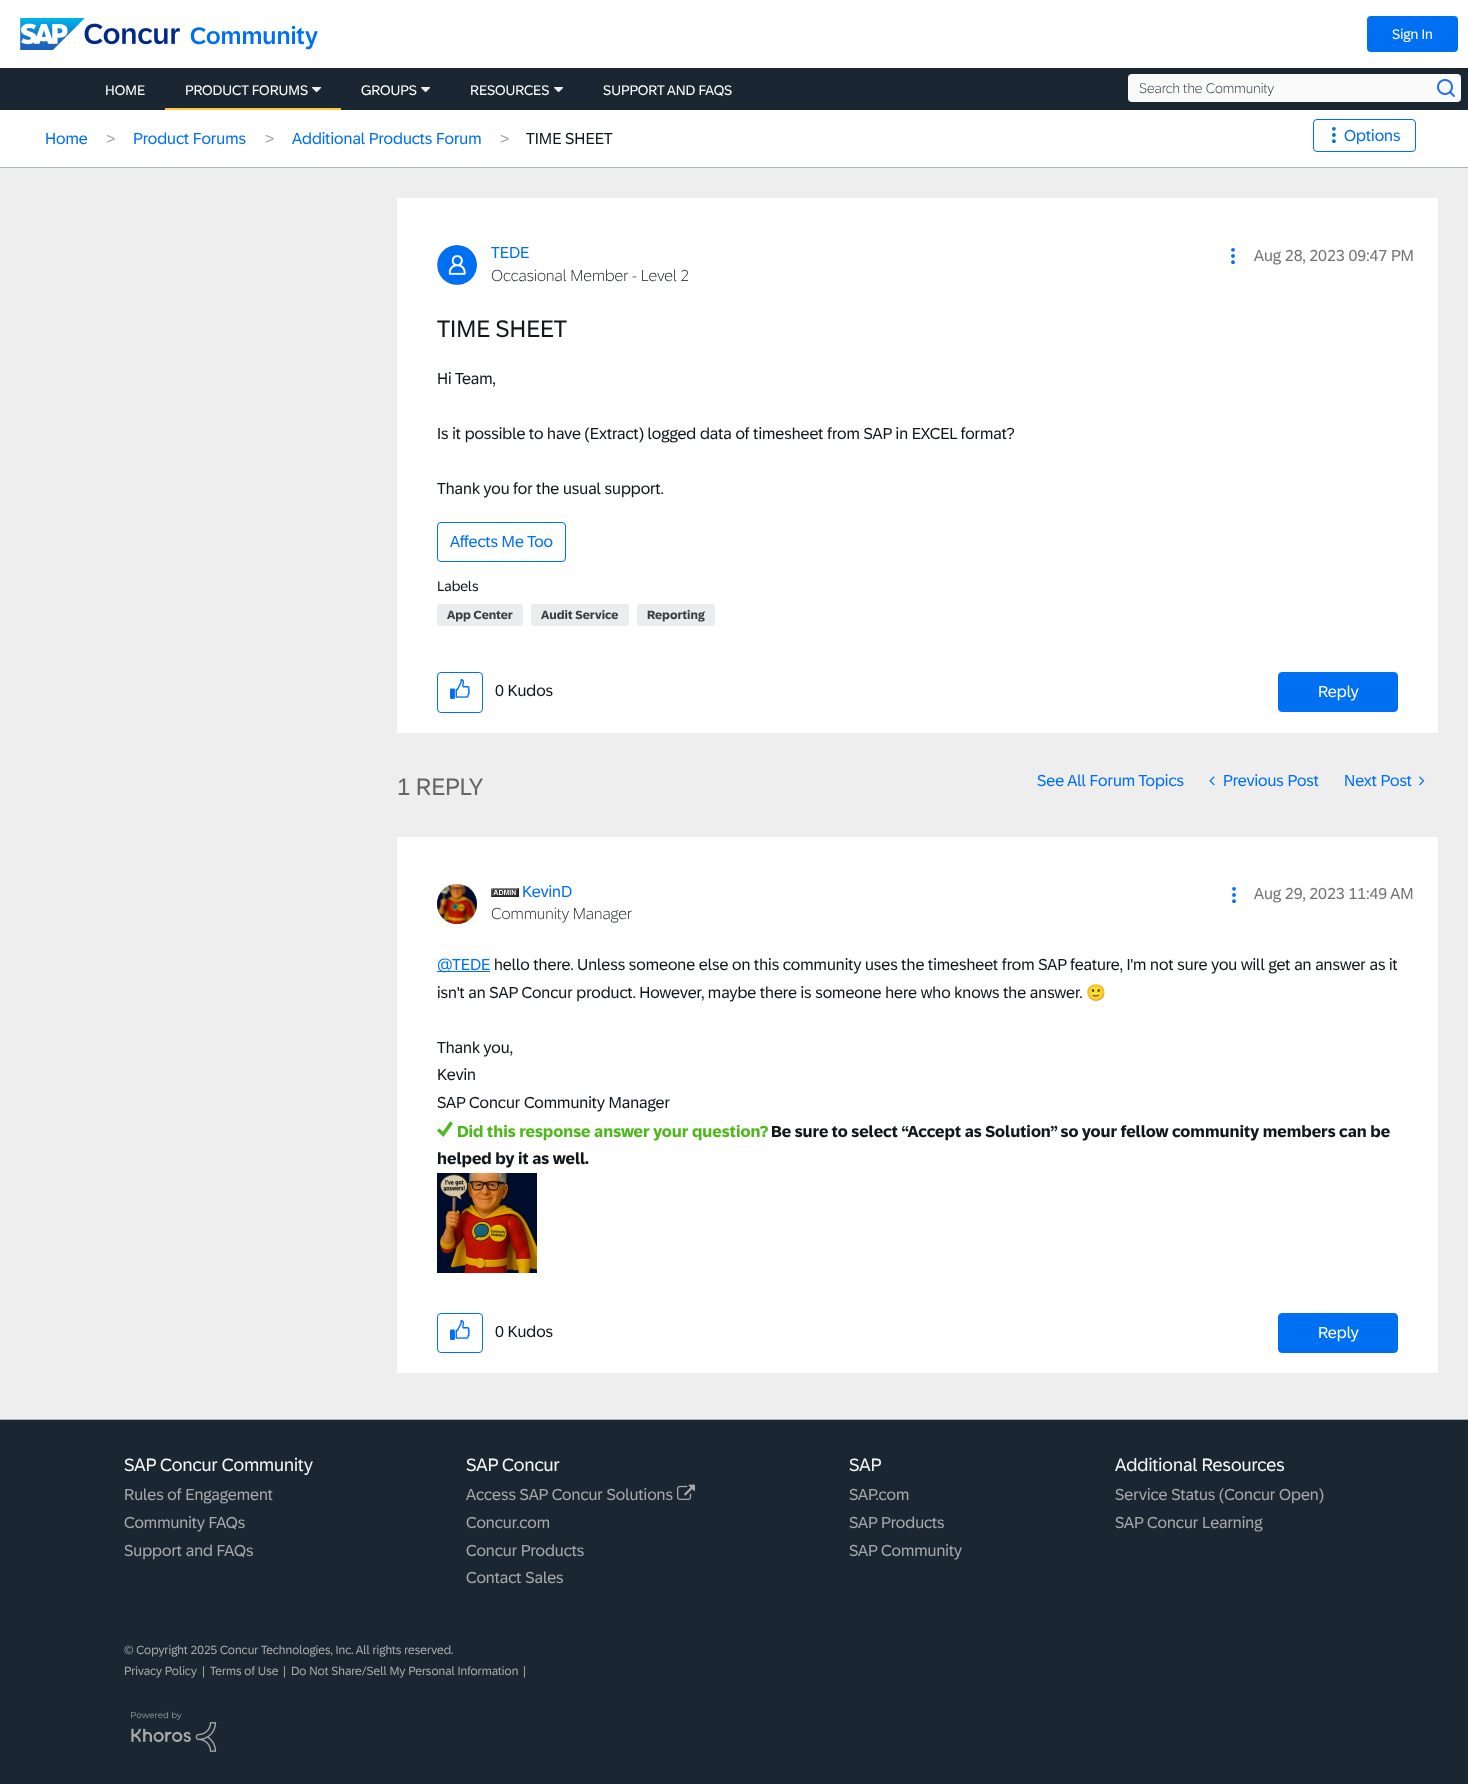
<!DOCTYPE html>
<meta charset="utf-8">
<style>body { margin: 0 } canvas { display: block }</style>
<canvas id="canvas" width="1468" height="1784"></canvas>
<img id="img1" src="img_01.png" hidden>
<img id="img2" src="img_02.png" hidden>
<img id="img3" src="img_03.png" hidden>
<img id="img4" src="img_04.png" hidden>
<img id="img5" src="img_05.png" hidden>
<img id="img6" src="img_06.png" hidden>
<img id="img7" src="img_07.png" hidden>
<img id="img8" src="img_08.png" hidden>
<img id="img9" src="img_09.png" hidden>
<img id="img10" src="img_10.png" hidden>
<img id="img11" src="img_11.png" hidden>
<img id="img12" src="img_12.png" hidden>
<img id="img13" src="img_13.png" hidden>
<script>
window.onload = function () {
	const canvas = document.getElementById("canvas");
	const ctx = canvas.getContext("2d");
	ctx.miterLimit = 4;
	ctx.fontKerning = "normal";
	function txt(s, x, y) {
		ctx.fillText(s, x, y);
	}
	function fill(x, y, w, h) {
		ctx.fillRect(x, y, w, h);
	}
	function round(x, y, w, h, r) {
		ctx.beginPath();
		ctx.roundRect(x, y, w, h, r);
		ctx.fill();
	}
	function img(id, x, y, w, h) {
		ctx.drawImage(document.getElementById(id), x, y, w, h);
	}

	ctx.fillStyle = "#EEEEEE";
	fill(0, 0, 1468, 1784);
	ctx.fillStyle = "#FFFFFF";
	fill(0, 0, 1468, 68);
	img("img1", 20, 18, 160, 32);
	ctx.fillStyle = "#0070F2";
	round(1367, 16, 91, 36, 4);
	ctx.fillStyle = "#1A2733";
	fill(0, 68, 1468, 42);
	ctx.fillStyle = "#FFC933";
	fill(165, 108, 176, 2);
	img("img2", 312, 87, 10, 6);
	img("img2", 421, 87, 10, 6);
	img("img2", 554, 87, 10, 6);
	ctx.fillStyle = "#FAFAFA";
	round(1128, 74, 333, 28, 4);
	img("img3", 1437, 79, 18, 18);
	ctx.fillStyle = "#FFFFFF";
	fill(0, 110, 1468, 57);
	ctx.fillStyle = "#A9B4BE";
	fill(0, 167, 1468, 1);
	ctx.beginPath();
	ctx.roundRect(1313.5, 119.5, 102, 32, 3.5);
	ctx.strokeStyle = "#0070F2";
	ctx.stroke();
	ctx.fillStyle = "#0078B6";
	ctx.beginPath();
	ctx.arc(1333.9, 128.8, 1.9, 0, Math.PI * 2);
	ctx.fill();
	ctx.beginPath();
	ctx.arc(1333.9, 135, 1.9, 0, Math.PI * 2);
	ctx.fill();
	ctx.beginPath();
	ctx.arc(1333.9, 141.2, 1.9, 0, Math.PI * 2);
	ctx.fill();
	ctx.fillStyle = "#FFFFFF";
	fill(397, 198, 1041, 535);
	ctx.fillStyle = "#A9B4BE";
	ctx.filter = "blur(0.5px)";
	ctx.beginPath();
	ctx.roundRect(437, 245, 40, 40, 20);
	ctx.fill();
	ctx.filter = "none";
	img("img4", 437, 245, 40, 40);
	ctx.fillStyle = "#0070F2";
	ctx.beginPath();
	ctx.arc(1233, 249.8, 1.9, 0, Math.PI * 2);
	ctx.fill();
	ctx.beginPath();
	ctx.arc(1233, 256, 1.9, 0, Math.PI * 2);
	ctx.fill();
	ctx.beginPath();
	ctx.arc(1233, 262.2, 1.9, 0, Math.PI * 2);
	ctx.fill();
	ctx.beginPath();
	ctx.roundRect(437.5, 522.5, 128, 39, 3.5);
	ctx.stroke();
	ctx.fillStyle = "#EAECEE";
	round(437, 604, 86, 22, 3);
	round(531, 604, 98, 22, 3);
	round(637, 604, 78, 22, 3);
	ctx.beginPath();
	ctx.roundRect(437.5, 672.5, 45, 40, 3.5);
	ctx.stroke();
	img("img5", 450, 679, 20, 20);
	ctx.fillStyle = "#0070F2";
	ctx.beginPath();
	ctx.roundRect(1278.5, 672.5, 119, 39, 3.5);
	ctx.fill();
	ctx.stroke();
	img("img6", 1209, 776, 6, 10);
	img("img7", 1419, 776, 6, 10);
	ctx.fillStyle = "#FFFFFF";
	fill(397, 837, 1041, 536);
	ctx.fillStyle = "#A9B4BE";
	ctx.filter = "blur(0.5px)";
	ctx.beginPath();
	ctx.roundRect(437, 884, 40, 40, 20);
	ctx.fill();
	ctx.filter = "none";
	img("img8", 437, 884, 40, 40);
	img("img9", 491, 888, 28, 9);
	ctx.fillStyle = "#0070F2";
	ctx.beginPath();
	ctx.arc(1234, 888.8, 1.9, 0, Math.PI * 2);
	ctx.fill();
	ctx.beginPath();
	ctx.arc(1234, 895, 1.9, 0, Math.PI * 2);
	ctx.fill();
	ctx.beginPath();
	ctx.arc(1234, 901.2, 1.9, 0, Math.PI * 2);
	ctx.fill();
	fill(437, 971, 53, 1);
	img("img10", 437, 1121, 16, 16);
	img("img11", 437, 1173, 100, 100);
	ctx.beginPath();
	ctx.roundRect(437.5, 1313.5, 45, 39, 3.5);
	ctx.stroke();
	img("img5", 450, 1320, 20, 20);
	ctx.beginPath();
	ctx.roundRect(1278.5, 1313.5, 119, 39, 3.5);
	ctx.fill();
	ctx.stroke();
	ctx.fillStyle = "#A9B4BE";
	fill(0, 1419, 1468, 1);
	ctx.fillStyle = "#1A2733";
	fill(0, 1420, 1468, 364);
	img("img12", 677, 1484, 18, 16);
	img("img13", 131, 1711, 86, 41);
	ctx.font = "500 24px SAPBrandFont";
	ctx.fillStyle = "#0070F2";
	txt("Community", 190, 44);
	ctx.font = "14px SAPBrandFont";
	ctx.fillStyle = "#FFFFFF";
	txt("Sign In", 1392, 39);
	txt("HOME", 105, 95);
	txt("PRODUCT FORUMS", 185, 95);
	txt("GROUPS", 361, 95);
	txt("RESOURCES", 470, 95);
	txt("SUPPORT AND FAQS", 603, 95);
	ctx.font = "300 14px SAPBrandFont";
	ctx.fillStyle = "#1A2733";
	txt("Search the Community", 1139, 93);
	ctx.font = "16px SAPBrandFont";
	ctx.fillStyle = "#0070F2";
	txt("Home", 45, 144);
	ctx.fillStyle = "#A1A1A1";
	txt(">", 106, 144);
	ctx.fillStyle = "#0070F2";
	txt("Product Forums", 133, 144);
	ctx.fillStyle = "#A1A1A1";
	txt(">", 265, 144);
	ctx.fillStyle = "#0070F2";
	txt("Additional Products Forum", 292, 144);
	ctx.fillStyle = "#A1A1A1";
	txt(">", 500, 144);
	ctx.fillStyle = "#12171C";
	txt("TIME SHEET", 526, 144);
	ctx.fillStyle = "#0070F2";
	txt("Options", 1344, 141);
	txt("TEDE", 491, 258);
	ctx.font = "300 16px SAPBrandFont";
	ctx.fillStyle = "#12171C";
	txt("Occasional Member - Level 2", 491, 281);
	ctx.font = "16px SAPBrandFont";
	ctx.fillStyle = "#747474";
	txt("Aug 28, 2023 09:47 PM", 1254, 261);
	ctx.font = "24px SAPBrandFont";
	ctx.fillStyle = "#12171C";
	txt("TIME SHEET", 437, 337);
	ctx.font = "16px SAPBrandFont";
	txt("Hi Team,", 437, 384);
	txt("Is it possible to have (Extract) logged data of timesheet from SAP in EXCEL format?", 437, 439);
	txt("Thank you for the usual support.", 437, 494);
	ctx.fillStyle = "#0070F2";
	txt("Affects Me Too", 450, 547);
	ctx.font = "14px SAPBrandFont";
	ctx.fillStyle = "#12171C";
	txt("Labels", 437, 591);
	ctx.font = "bold 12px SAPBrandFont";
	ctx.fillStyle = "#3E3E3E";
	txt("App Center", 447, 619);
	txt("Audit Service", 541, 619);
	txt("Reporting", 647, 619);
	ctx.font = "16px SAPBrandFont";
	ctx.fillStyle = "#12171C";
	txt("0 Kudos", 495, 696);
	ctx.fillStyle = "#FFFFFF";
	txt("Reply", 1318, 697);
	ctx.font = "24px SAPBrandFont";
	ctx.fillStyle = "#666666";
	txt("1 REPLY", 397, 795);
	ctx.font = "16px SAPBrandFont";
	ctx.fillStyle = "#0070F2";
	txt("See All Forum Topics", 1037, 786);
	txt("Previous Post", 1223, 786);
	txt("Next Post", 1344, 786);
	txt("KevinD", 522, 897);
	ctx.font = "300 16px SAPBrandFont";
	ctx.fillStyle = "#12171C";
	txt("Community Manager", 491, 919);
	ctx.font = "16px SAPBrandFont";
	ctx.fillStyle = "#747474";
	txt("Aug 29, 2023 11:49 AM", 1254, 899);
	ctx.fillStyle = "#0070F2";
	txt("@TEDE", 437, 970);
	ctx.fillStyle = "#12171C";
	txt("hello there. Unless someone else on this community uses the timesheet from SAP feature, I'm not sure you will get an answer as it", 494, 970);
	txt("isn't an SAP Concur product. However, maybe there is someone here who knows the answer.", 437, 998);
	ctx.font = "16px Noto Color Emoji";
	txt("🙂", 1086, 998);
	ctx.font = "16px SAPBrandFont";
	txt("Thank you,", 437, 1053);
	txt("Kevin", 437, 1080);
	txt("SAP Concur Community Manager", 437, 1108);
	ctx.font = "bold 16px SAPBrandFont";
	ctx.fillStyle = "#4FB81C";
	txt("Did this response answer your question?", 457, 1137);
	ctx.fillStyle = "#12171C";
	txt("Be sure to select “Accept as Solution” so your fellow community members can be", 771, 1137);
	txt("helped by it as well.", 437, 1164);
	ctx.font = "16px SAPBrandFont";
	txt("0 Kudos", 495, 1337);
	ctx.fillStyle = "#FFFFFF";
	txt("Reply", 1318, 1338);
	ctx.font = "18px SAPBrandFont";
	ctx.fillStyle = "#F6F6F6";
	txt("SAP Concur Community", 124, 1471);
	ctx.font = "16px SAPBrandFont";
	ctx.fillStyle = "#A8A8A8";
	txt("Rules of Engagement", 124, 1500);
	txt("Community FAQs", 124, 1528);
	txt("Support and FAQs", 124, 1556);
	ctx.font = "18px SAPBrandFont";
	ctx.fillStyle = "#F6F6F6";
	txt("SAP Concur", 466, 1471);
	ctx.font = "16px SAPBrandFont";
	ctx.fillStyle = "#A8A8A8";
	txt("Access SAP Concur Solutions", 466, 1500);
	txt("Concur.com", 466, 1528);
	txt("Concur Products", 466, 1556);
	txt("Contact Sales", 466, 1583);
	ctx.font = "18px SAPBrandFont";
	ctx.fillStyle = "#F6F6F6";
	txt("SAP", 849, 1471);
	ctx.font = "16px SAPBrandFont";
	ctx.fillStyle = "#A8A8A8";
	txt("SAP.com", 849, 1500);
	txt("SAP Products", 849, 1528);
	txt("SAP Community", 849, 1556);
	ctx.font = "18px SAPBrandFont";
	ctx.fillStyle = "#F6F6F6";
	txt("Additional Resources", 1115, 1471);
	ctx.font = "16px SAPBrandFont";
	ctx.fillStyle = "#A8A8A8";
	txt("Service Status (Concur Open)", 1115, 1500);
	txt("SAP Concur Learning", 1115, 1528);
	ctx.font = "12px SAPBrandFont";
	txt("© Copyright 2025 Concur Technologies, Inc. All rights reserved.", 124, 1654);
	txt("Privacy Policy", 124, 1675);
	txt("|", 202, 1675);
	txt("Terms of Use", 210, 1675);
	txt("|", 283, 1675);
	txt("Do Not Share/Sell My Personal Information", 291, 1675);
	txt("|", 523, 1675);
};
</script>
